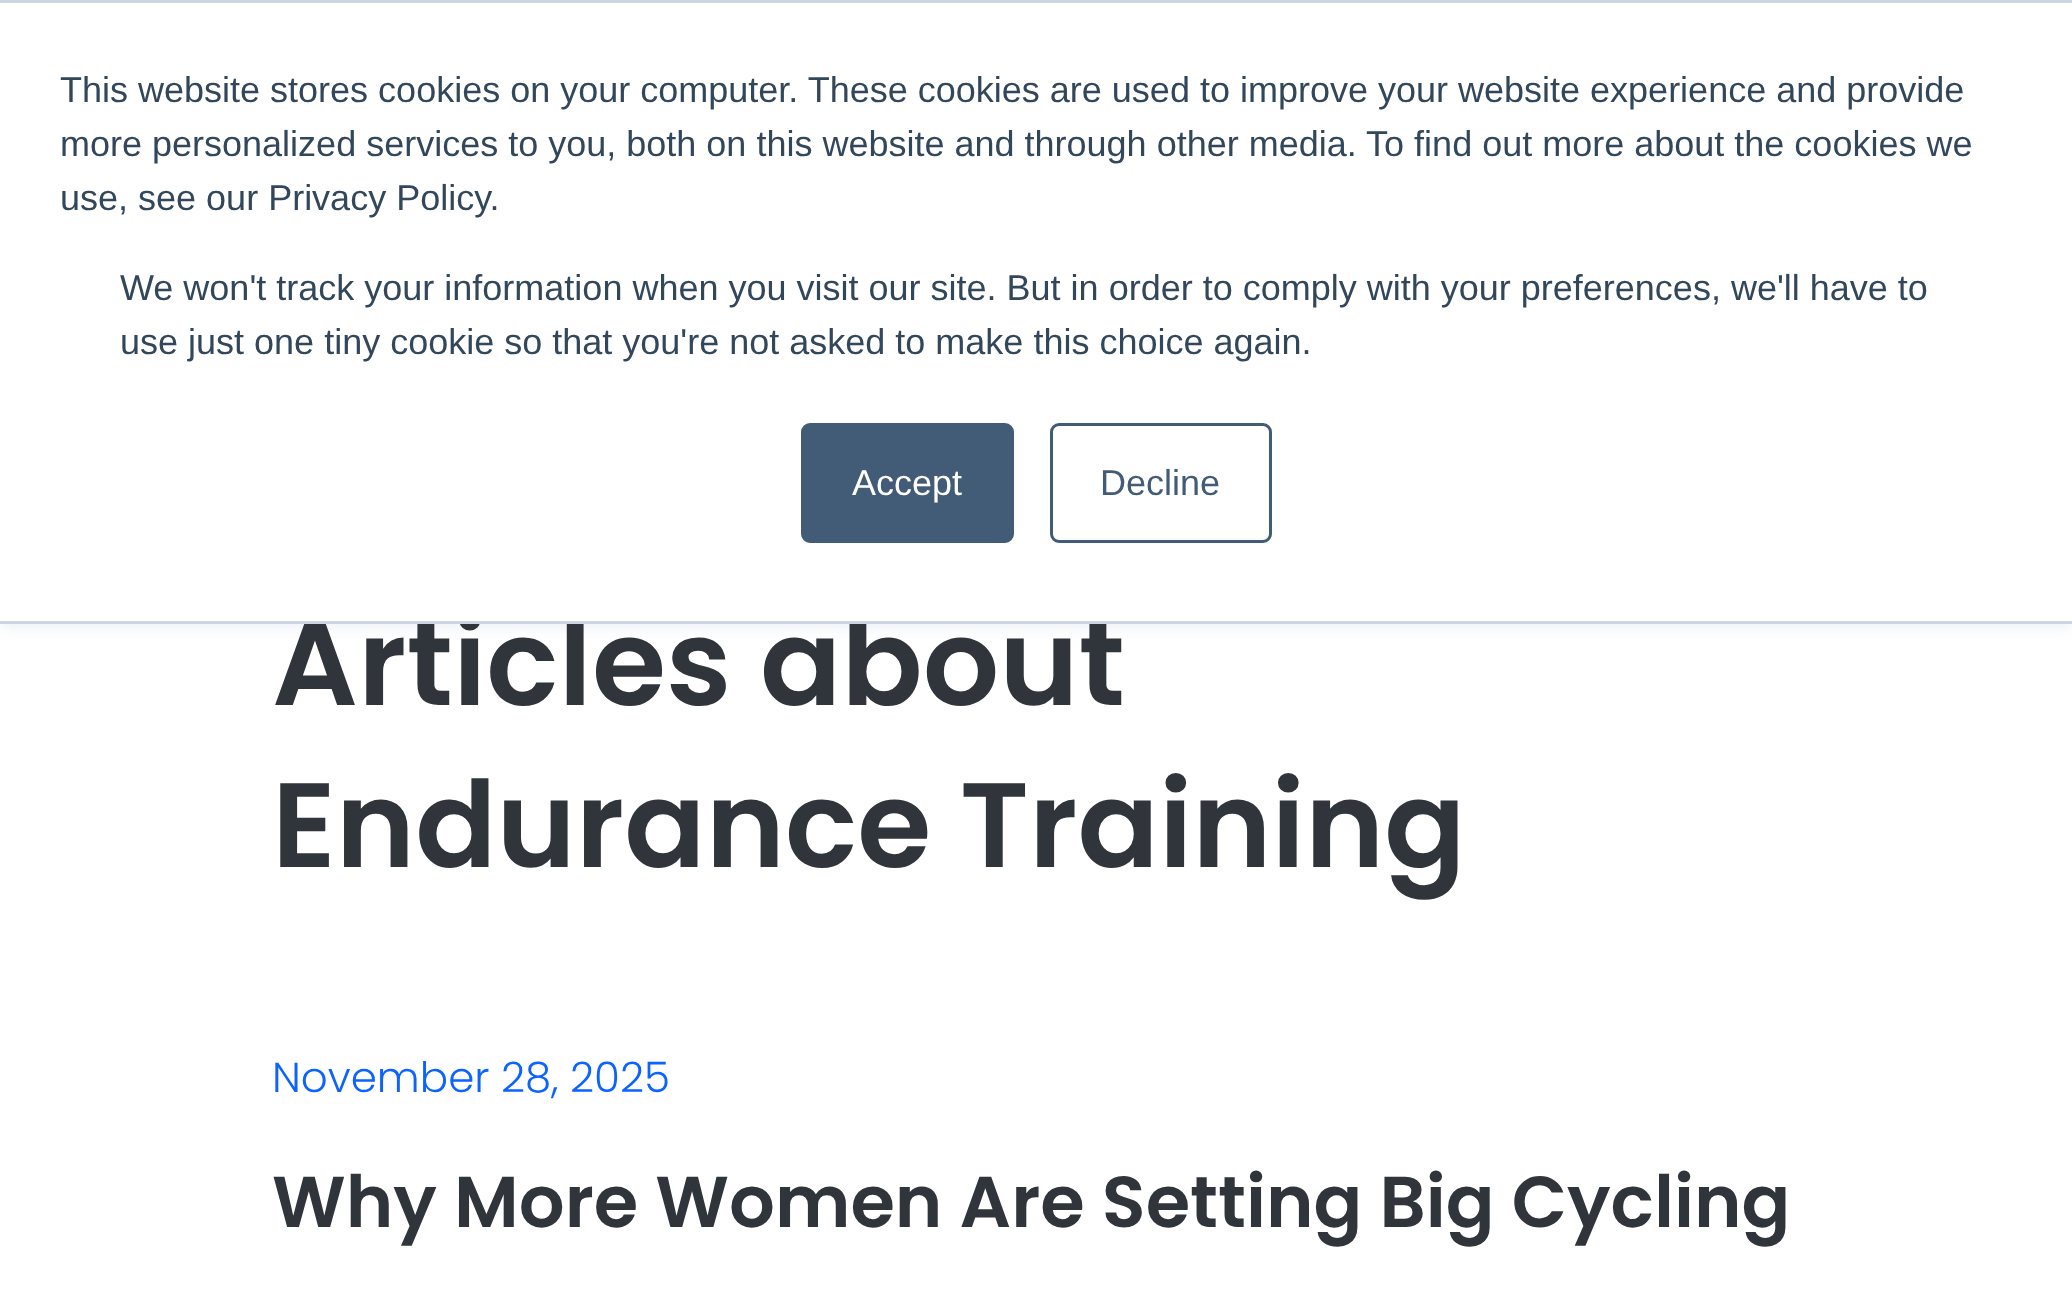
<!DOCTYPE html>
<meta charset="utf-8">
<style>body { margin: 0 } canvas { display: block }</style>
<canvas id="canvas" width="2072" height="1297"></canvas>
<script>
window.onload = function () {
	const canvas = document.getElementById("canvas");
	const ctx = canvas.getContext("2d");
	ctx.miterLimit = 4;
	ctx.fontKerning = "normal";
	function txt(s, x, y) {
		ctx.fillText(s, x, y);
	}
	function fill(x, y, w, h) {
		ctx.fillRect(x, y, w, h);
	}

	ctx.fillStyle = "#FFFFFF";
	fill(0, 0, 2072, 1297);
	ctx.fillStyle = "#EAF0F6";
	ctx.filter = "blur(7.5px)";
	ctx.beginPath();
	ctx.rect(0, 3, 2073, 624);
	ctx.fill();
	ctx.filter = "none";
	ctx.fillStyle = "#CBD6E2";
	fill(0, 0, 2072, 3);
	ctx.font = "600 120px Poppins";
	ctx.fillStyle = "#30343B";
	txt("Articles about", 272, 705);
	ctx.fillStyle = "#FFFFFF";
	fill(0, 3, 2072, 618);
	ctx.beginPath();
	ctx.roundRect(1051.5, 424.5, 219, 117, 7.5);
	ctx.strokeStyle = "#425B76";
	ctx.lineWidth = 3;
	ctx.stroke();
	ctx.font = "36px Liberation Sans";
	ctx.fillStyle = "#425B76";
	txt("Decline", 1100, 495);
	ctx.beginPath();
	ctx.roundRect(802.5, 424.5, 210, 117, 7.5);
	ctx.fill();
	ctx.stroke();
	ctx.fillStyle = "#FFFFFF";
	txt("Accept", 852, 495);
	ctx.fillStyle = "#33475B";
	txt("use just one tiny cookie so that you're not asked to make this choice again.", 120, 354);
	txt("We won't track your information when you visit our site. But in order to comply with your preferences, we'll have to", 120, 300);
	txt("use, see our Privacy Policy.", 60, 210);
	txt("more personalized services to you, both on this website and through other media. To find out more about the cookies we", 60, 156);
	txt("This website stores cookies on your computer. These cookies are used to improve your website experience and provide", 60, 102);
	ctx.fillStyle = "#CBD6E2";
	fill(0, 621, 2072, 3);
	ctx.font = "600 120px Poppins";
	ctx.fillStyle = "#30343B";
	txt("Endurance Training", 272, 867);
	ctx.font = "300 42px Poppins";
	ctx.fillStyle = "#0C63FF";
	txt("November 28, 2025", 272, 1092);
	ctx.font = "600 72px Poppins";
	ctx.fillStyle = "#30343B";
	txt("Why More Women Are Setting Big Cycling", 272, 1227);
};
</script>
